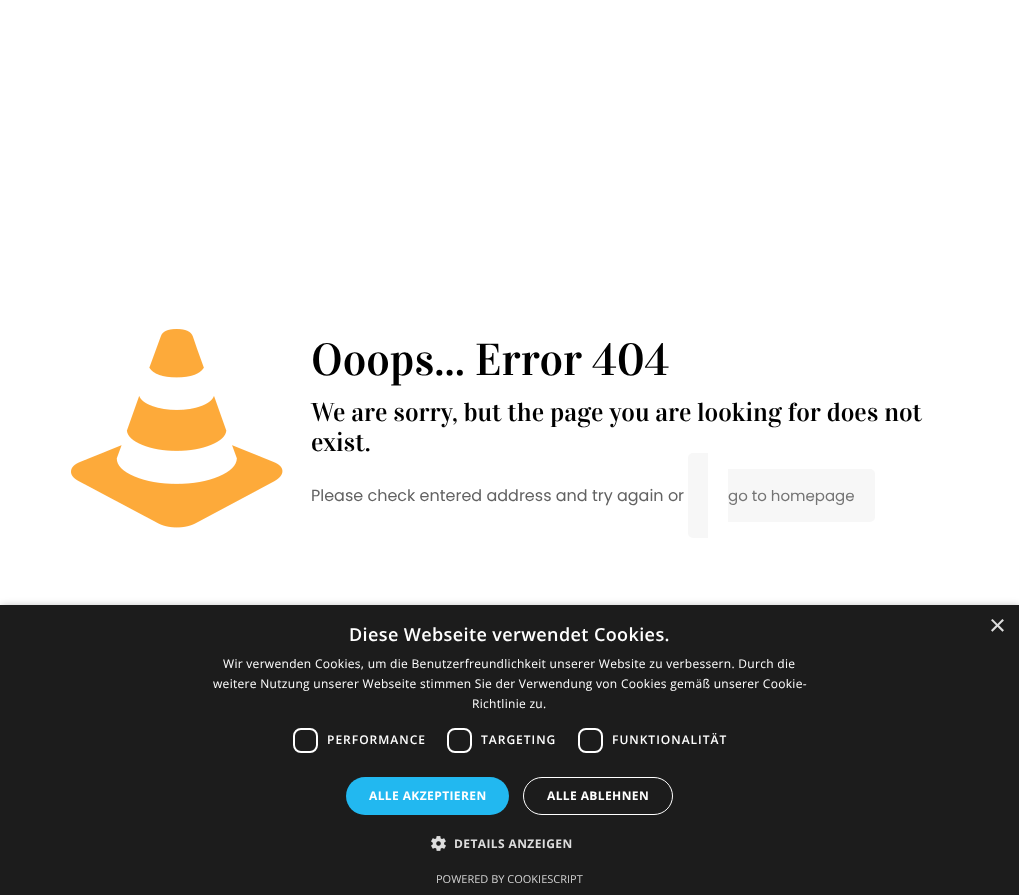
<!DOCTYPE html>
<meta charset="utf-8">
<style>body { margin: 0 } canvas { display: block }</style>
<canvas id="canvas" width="1019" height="895"></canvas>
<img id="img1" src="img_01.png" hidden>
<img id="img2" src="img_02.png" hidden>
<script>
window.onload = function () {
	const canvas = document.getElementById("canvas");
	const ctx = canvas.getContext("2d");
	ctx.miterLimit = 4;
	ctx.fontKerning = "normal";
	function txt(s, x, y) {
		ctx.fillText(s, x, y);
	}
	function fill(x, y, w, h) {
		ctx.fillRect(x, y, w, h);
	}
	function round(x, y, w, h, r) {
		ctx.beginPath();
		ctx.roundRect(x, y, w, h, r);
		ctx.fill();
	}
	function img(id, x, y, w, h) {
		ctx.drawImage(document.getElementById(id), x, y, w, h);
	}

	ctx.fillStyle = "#FFFFFF";
	fill(0, 0, 1019, 895);
	img("img1", 71, 329, 212, 199);
	ctx.fillStyle = "#F7F7F7";
	ctx.beginPath();
	ctx.roundRect(688, 453, 20, 85, [5, 0, 0, 5]);
	ctx.fill();
	ctx.beginPath();
	ctx.roundRect(728, 469, 147, 53, [0, 5, 5, 0]);
	ctx.fill();
	ctx.fillStyle = "rgba(0, 0, 0, 0.35)";
	ctx.filter = "blur(4px)";
	ctx.beginPath();
	ctx.rect(1, 607, 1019, 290);
	ctx.fill();
	ctx.filter = "none";
	ctx.fillStyle = "#1C1C1C";
	fill(0, 605, 1019, 290);
	ctx.beginPath();
	ctx.roundRect(294, 729, 23, 23, 7);
	ctx.strokeStyle = "#FFFFFF";
	ctx.lineWidth = 2;
	ctx.stroke();
	ctx.beginPath();
	ctx.roundRect(448, 729, 23, 23, 7);
	ctx.stroke();
	ctx.beginPath();
	ctx.roundRect(579, 729, 23, 23, 7);
	ctx.stroke();
	ctx.fillStyle = "#22B8F0";
	round(346, 777, 163, 38, 19);
	ctx.beginPath();
	ctx.roundRect(523.5, 777.5, 149, 37, 18.5);
	ctx.lineWidth = 1;
	ctx.stroke();
	img("img2", 431, 836, 15, 15);
	ctx.font = "45px Vidaloka";
	ctx.fillStyle = "#000000";
	txt("Ooops... Error 404", 311, 375);
	ctx.font = "26px Vidaloka";
	txt("We are sorry, but the page you are looking for does not", 311, 421);
	txt("exist.", 311, 451);
	ctx.font = "16px Poppins";
	ctx.fillStyle = "#626262";
	txt("Please check entered address and try again or", 311, 501);
	ctx.font = "15px Poppins";
	ctx.fillStyle = "#747474";
	txt("go to homepage", 728, 501);
	ctx.font = "29px Liberation Sans";
	ctx.fillStyle = "#DDDDDD";
	txt("×", 989, 635);
	ctx.letterSpacing = "0.4px";
	ctx.font = "600 18px Open Sans";
	ctx.fillStyle = "#FFFFFF";
	txt("Diese Webseite verwendet Cookies.", 349, 641);
	ctx.letterSpacing = "0.3px";
	ctx.font = "12px Open Sans";
	txt("Wir verwenden Cookies, um die Benutzerfreundlichkeit unserer Website zu verbessern. Durch die", 223, 668);
	txt("weitere Nutzung unserer Webseite stimmen Sie der Verwendung von Cookies gemäß unserer Cookie-", 213, 688);
	txt("Richtlinie zu.", 472, 708);
	ctx.letterSpacing = "1px";
	ctx.font = "600 12px Open Sans";
	txt("PERFORMANCE", 327, 744);
	txt("TARGETING", 481, 744);
	txt("FUNKTIONALITÄT", 612, 744);
	ctx.letterSpacing = "0.4px";
	ctx.font = "bold 12px Open Sans";
	txt("ALLE AKZEPTIEREN", 369, 800);
	txt("ALLE ABLEHNEN", 547, 800);
	ctx.fillStyle = "#DDDDDD";
	txt("DETAILS ANZEIGEN", 454, 848);
	ctx.letterSpacing = "0px";
	ctx.font = "11px Open Sans";
	ctx.fillStyle = "#D2D2D2";
	txt("POWERED BY COOKIESCRIPT", 436, 883);
};
</script>
